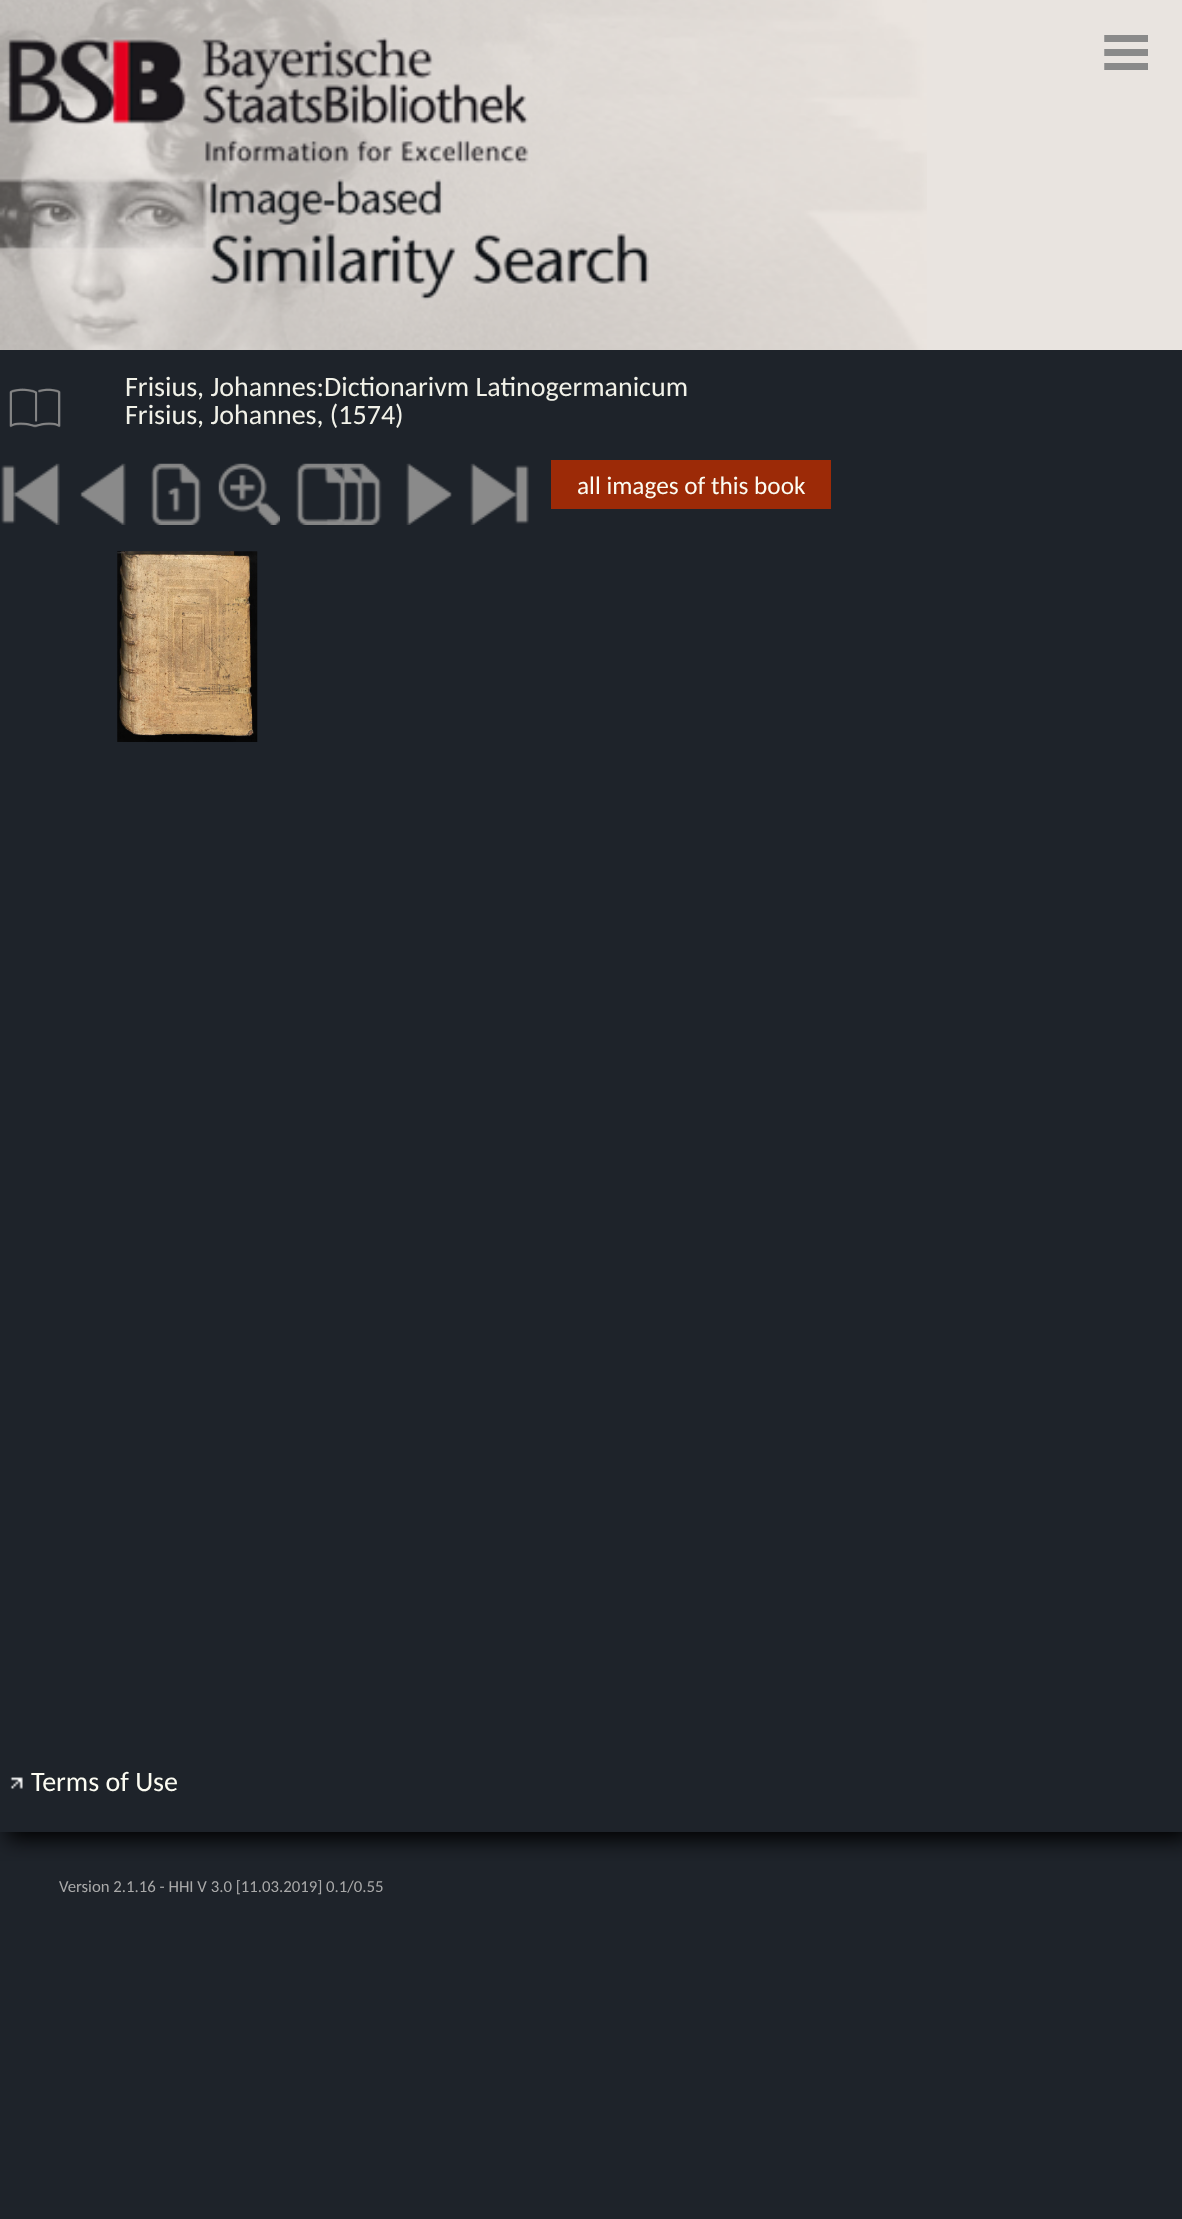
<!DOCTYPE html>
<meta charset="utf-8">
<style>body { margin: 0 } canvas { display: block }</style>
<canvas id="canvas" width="1182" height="2219"></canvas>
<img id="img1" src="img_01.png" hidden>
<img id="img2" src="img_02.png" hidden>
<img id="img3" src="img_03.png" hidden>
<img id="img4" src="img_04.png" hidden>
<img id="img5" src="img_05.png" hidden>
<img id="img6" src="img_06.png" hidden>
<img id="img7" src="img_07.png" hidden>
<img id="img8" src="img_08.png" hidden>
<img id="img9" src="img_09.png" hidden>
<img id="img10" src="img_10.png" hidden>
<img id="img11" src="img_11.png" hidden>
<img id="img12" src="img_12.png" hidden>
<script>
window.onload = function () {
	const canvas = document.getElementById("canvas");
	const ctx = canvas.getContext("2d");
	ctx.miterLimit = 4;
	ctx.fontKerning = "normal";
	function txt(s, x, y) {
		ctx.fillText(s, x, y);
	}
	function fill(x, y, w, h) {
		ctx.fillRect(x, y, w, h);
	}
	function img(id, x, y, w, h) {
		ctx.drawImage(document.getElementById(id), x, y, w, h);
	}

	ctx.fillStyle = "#1E232A";
	fill(0, 0, 1182, 2219);
	ctx.save();
	ctx.beginPath();
	ctx.rect(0, 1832, 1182, 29);
	ctx.clip();
	ctx.fillStyle = "#000000";
	ctx.filter = "blur(10.5px)";
	ctx.beginPath();
	ctx.rect(7, 7, 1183, 1832);
	ctx.fill();
	ctx.filter = "none";
	ctx.restore();
	ctx.fillStyle = "#E9E4E0";
	fill(0, 0, 1182, 350);
	img("img1", 0, 0, 927, 350);
	img("img2", 1104, 35, 44, 35);
	img("img3", 9, 388, 52, 40);
	img("img4", 1, 463, 59, 62);
	img("img5", 80, 463, 46, 62);
	img("img6", 151, 463, 50, 62);
	img("img7", 218, 463, 62, 62);
	img("img8", 296, 463, 86, 62);
	img("img9", 406, 463, 46, 62);
	img("img10", 470, 463, 59, 62);
	ctx.fillStyle = "#9C2A07";
	fill(551, 460, 280, 49);
	img("img11", 117, 551, 141, 191);
	img("img12", 10, 1777, 13, 12);
	ctx.font = "28px Carlito";
	ctx.fillStyle = "#F1F1E8";
	txt("Frisius, Johannes:Dictionarivm Latinogermanicum", 125, 396);
	txt("Frisius, Johannes, (1574)", 125, 424);
	ctx.font = "25.25px Carlito";
	ctx.fillStyle = "#FCFCF2";
	txt("all images of this book", 577, 494);
	ctx.font = "28px Carlito";
	txt("Terms of Use", 31, 1791);
	ctx.font = "16.75px Carlito";
	ctx.fillStyle = "#A9A9A9";
	txt("Version 2.1.16 - HHI V 3.0 [11.03.2019] 0.1/0.55", 59, 1892);
};
</script>
